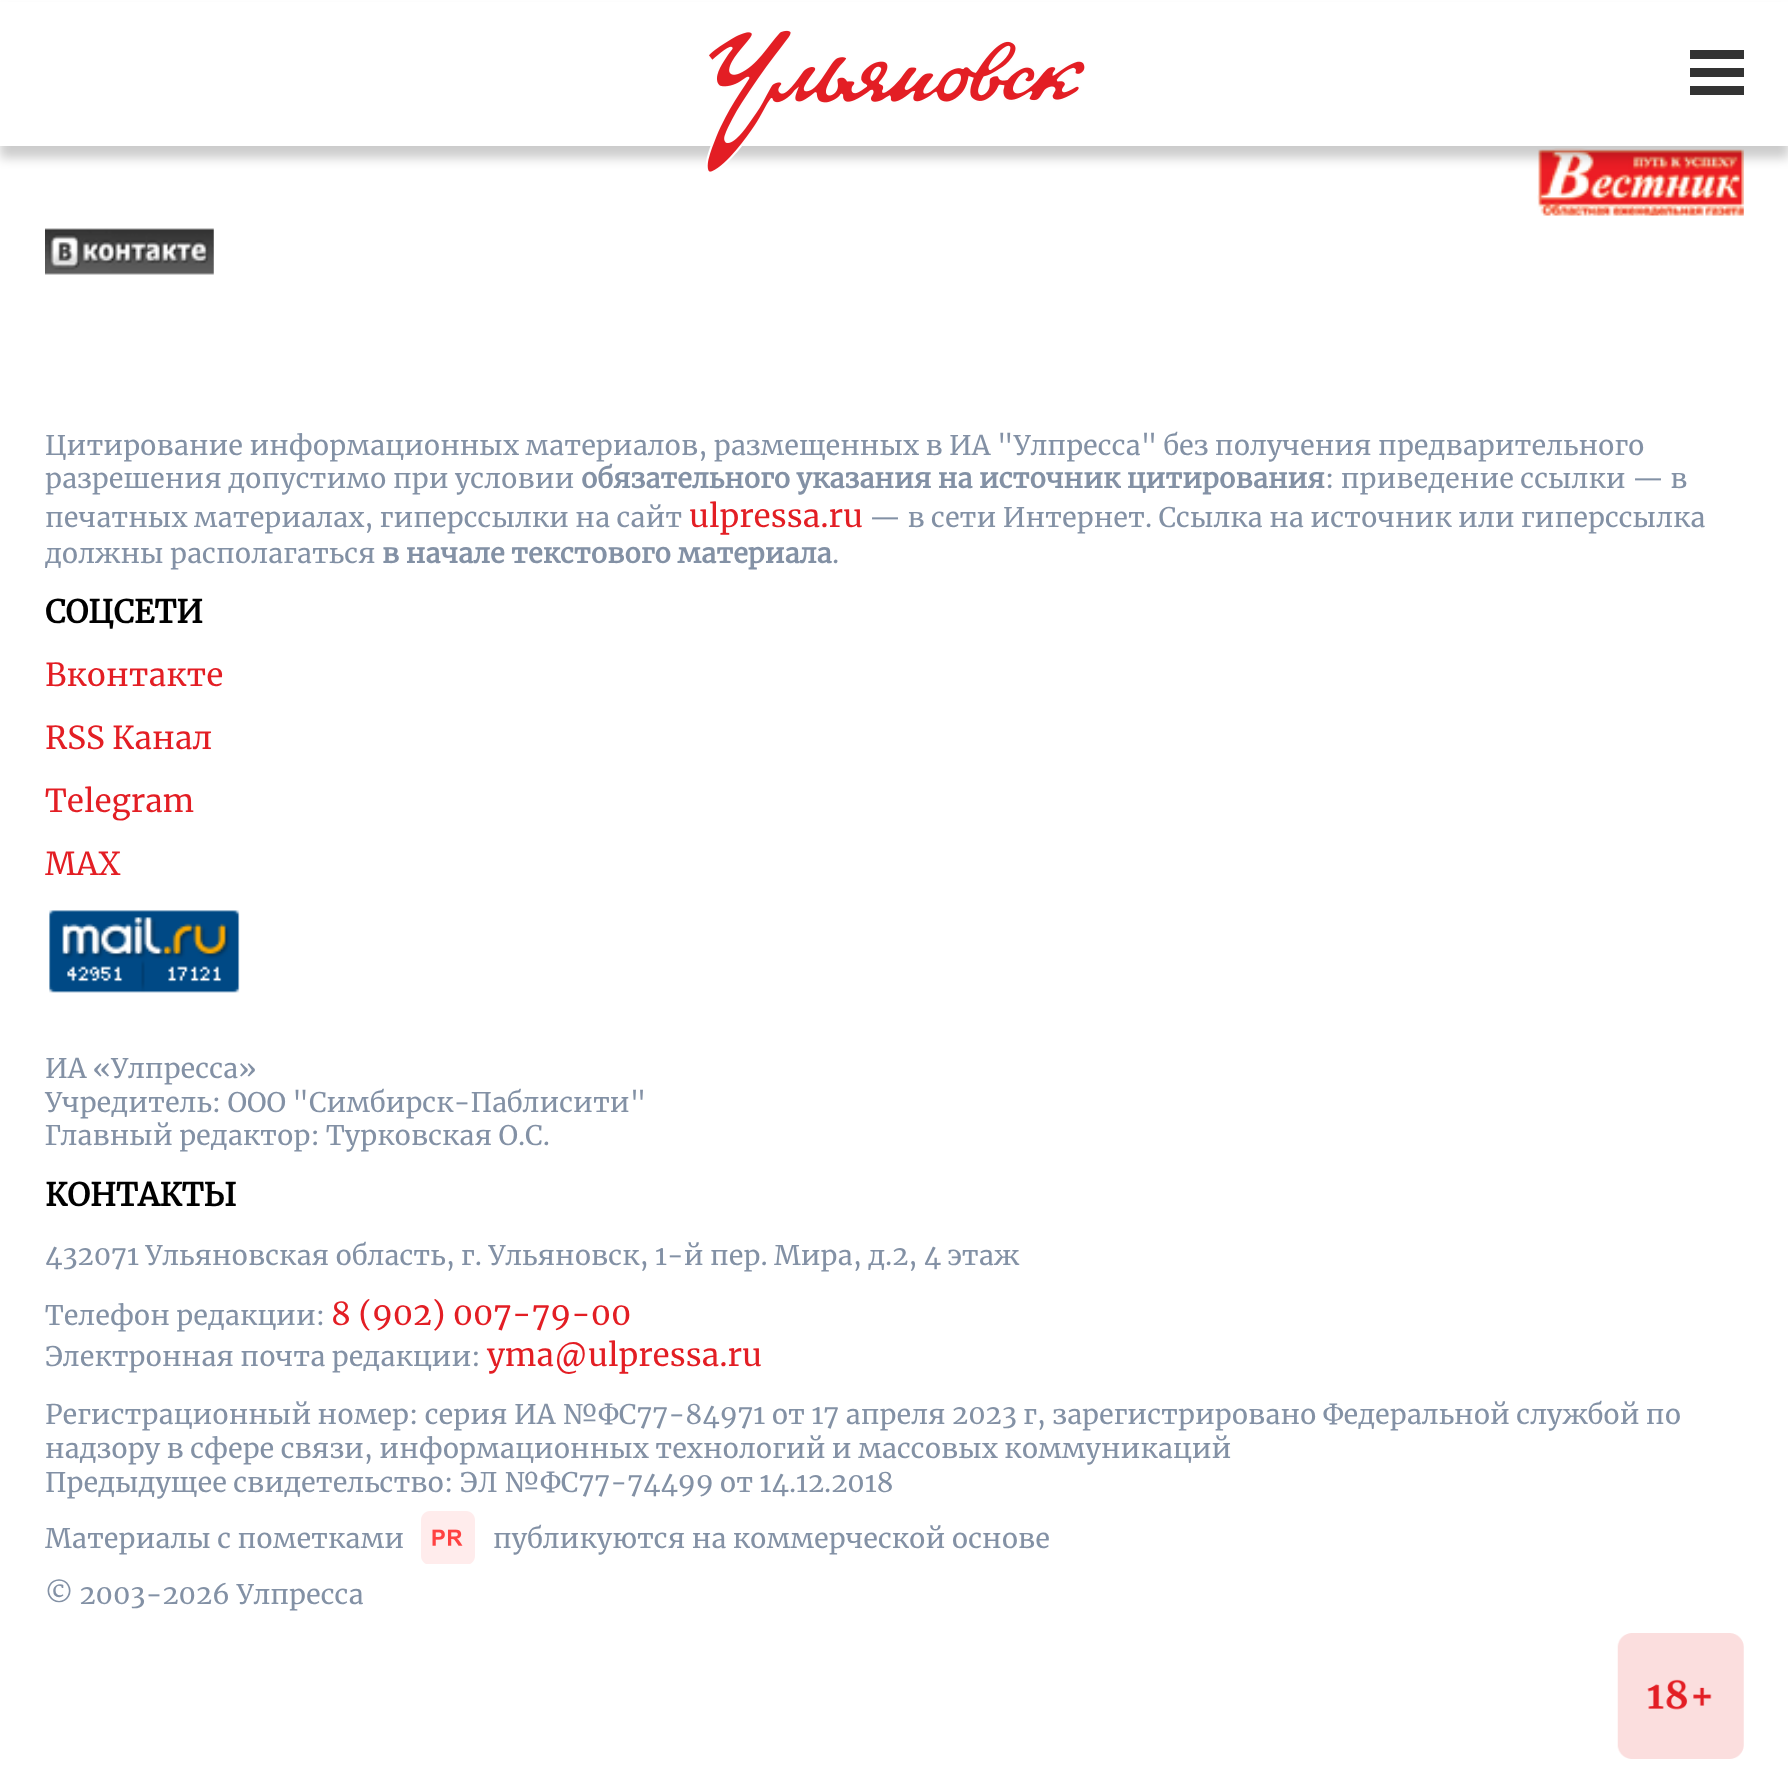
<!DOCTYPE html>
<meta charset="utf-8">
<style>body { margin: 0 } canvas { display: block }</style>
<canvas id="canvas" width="1788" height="1792"></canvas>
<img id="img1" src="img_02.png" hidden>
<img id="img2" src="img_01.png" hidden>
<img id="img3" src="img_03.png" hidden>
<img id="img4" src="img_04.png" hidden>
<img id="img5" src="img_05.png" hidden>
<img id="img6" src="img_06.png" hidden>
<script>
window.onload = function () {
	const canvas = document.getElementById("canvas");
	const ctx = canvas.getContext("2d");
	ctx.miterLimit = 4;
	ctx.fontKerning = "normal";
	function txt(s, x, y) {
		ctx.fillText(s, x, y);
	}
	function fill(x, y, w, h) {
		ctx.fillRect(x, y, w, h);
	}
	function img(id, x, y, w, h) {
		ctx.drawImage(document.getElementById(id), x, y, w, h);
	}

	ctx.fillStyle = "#FFFFFF";
	fill(0, 0, 1788, 1792);
	img("img1", 1537, 148, 207, 68);
	ctx.fillStyle = "rgba(0, 0, 0, 0.2)";
	ctx.filter = "blur(5.5px)";
	ctx.beginPath();
	ctx.rect(0, 11, 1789, 147);
	ctx.fill();
	ctx.filter = "none";
	ctx.fillStyle = "#FFFFFF";
	fill(0, 2, 1788, 144);
	img("img2", 706, 30, 379, 142);
	ctx.fillStyle = "#333333";
	fill(1690, 50, 54, 9);
	fill(1690, 68, 54, 9);
	fill(1690, 86, 54, 9);
	img("img3", 45, 228, 169, 47);
	img("img4", 49, 910, 191, 83);
	img("img5", 421, 1511, 54, 53);
	img("img6", 1617, 1633, 127, 126);
	ctx.font = "27px Merriweather";
	ctx.fillStyle = "#8391A5";
	txt("Цитирование информационных материалов, размещенных в ИА \"Улпресса\" без получения предварительного", 45, 455);
	txt("разрешения допустимо при условии", 45, 488);
	ctx.font = "bold 27px Merriweather";
	txt("обязательного указания на источник цитирования", 581, 488);
	ctx.font = "27px Merriweather";
	txt(": приведение ссылки — в", 1325, 488);
	txt("печатных материалах, гиперссылки на cайт", 45, 527);
	ctx.font = "31.5px Merriweather";
	ctx.fillStyle = "#E31E24";
	txt("ulpressa.ru", 689, 527);
	ctx.font = "27px Merriweather";
	ctx.fillStyle = "#8391A5";
	txt("— в сети Интернет. Ссылка на источник или гиперссылка", 869, 527);
	txt("должны располагаться", 45, 563);
	ctx.font = "bold 27px Merriweather";
	txt("в начале текстового материала", 382, 563);
	ctx.font = "27px Merriweather";
	txt(".", 832, 563);
	ctx.font = "bold 31.5px Merriweather";
	ctx.fillStyle = "#000000";
	txt("СОЦСЕТИ", 45, 623);
	ctx.font = "31.5px Merriweather";
	ctx.fillStyle = "#E31E24";
	txt("Вконтакте", 45, 686);
	txt("RSS Канал", 45, 749);
	txt("Telegram", 45, 812);
	txt("MAX", 45, 875);
	ctx.font = "27px Merriweather";
	ctx.fillStyle = "#8391A5";
	txt("ИА «Улпресса»", 45, 1078);
	txt("Учредитель: ООО \"Симбирск-Паблисити\"", 45, 1112);
	txt("Главный редактор: Турковская О.С.", 45, 1145);
	ctx.font = "bold 31.5px Merriweather";
	ctx.fillStyle = "#000000";
	txt("КОНТАКТЫ", 45, 1206);
	ctx.font = "27px Merriweather";
	ctx.fillStyle = "#8391A5";
	txt("432071 Ульяновская область, г. Ульяновск, 1-й пер. Мира, д.2, 4 этаж", 45, 1265);
	txt("Телефон редакции:", 45, 1325);
	ctx.font = "31.5px Merriweather";
	ctx.fillStyle = "#E31E24";
	txt("8 (902) 007-79-00", 331, 1325);
	ctx.font = "27px Merriweather";
	ctx.fillStyle = "#8391A5";
	txt("Электронная почта редакции:", 45, 1366);
	ctx.font = "31.5px Merriweather";
	ctx.fillStyle = "#E31E24";
	txt("yma@ulpressa.ru", 487, 1366);
	ctx.font = "27px Merriweather";
	ctx.fillStyle = "#8391A5";
	txt("Регистрационный номер: серия ИА №ФС77-84971 от 17 апреля 2023 г, зарегистрировано Федеральной службой по", 45, 1424);
	txt("надзору в сфере связи, информационных технологий и массовых коммуникаций", 45, 1458);
	txt("Предыдущее свидетельство: ЭЛ №ФС77-74499 от 14.12.2018", 45, 1492);
	txt("Материалы с пометками", 45, 1548);
	txt("публикуются на коммерческой основе", 493, 1548);
	txt("© 2003-2026 Улпресса", 45, 1604);
};
</script>
